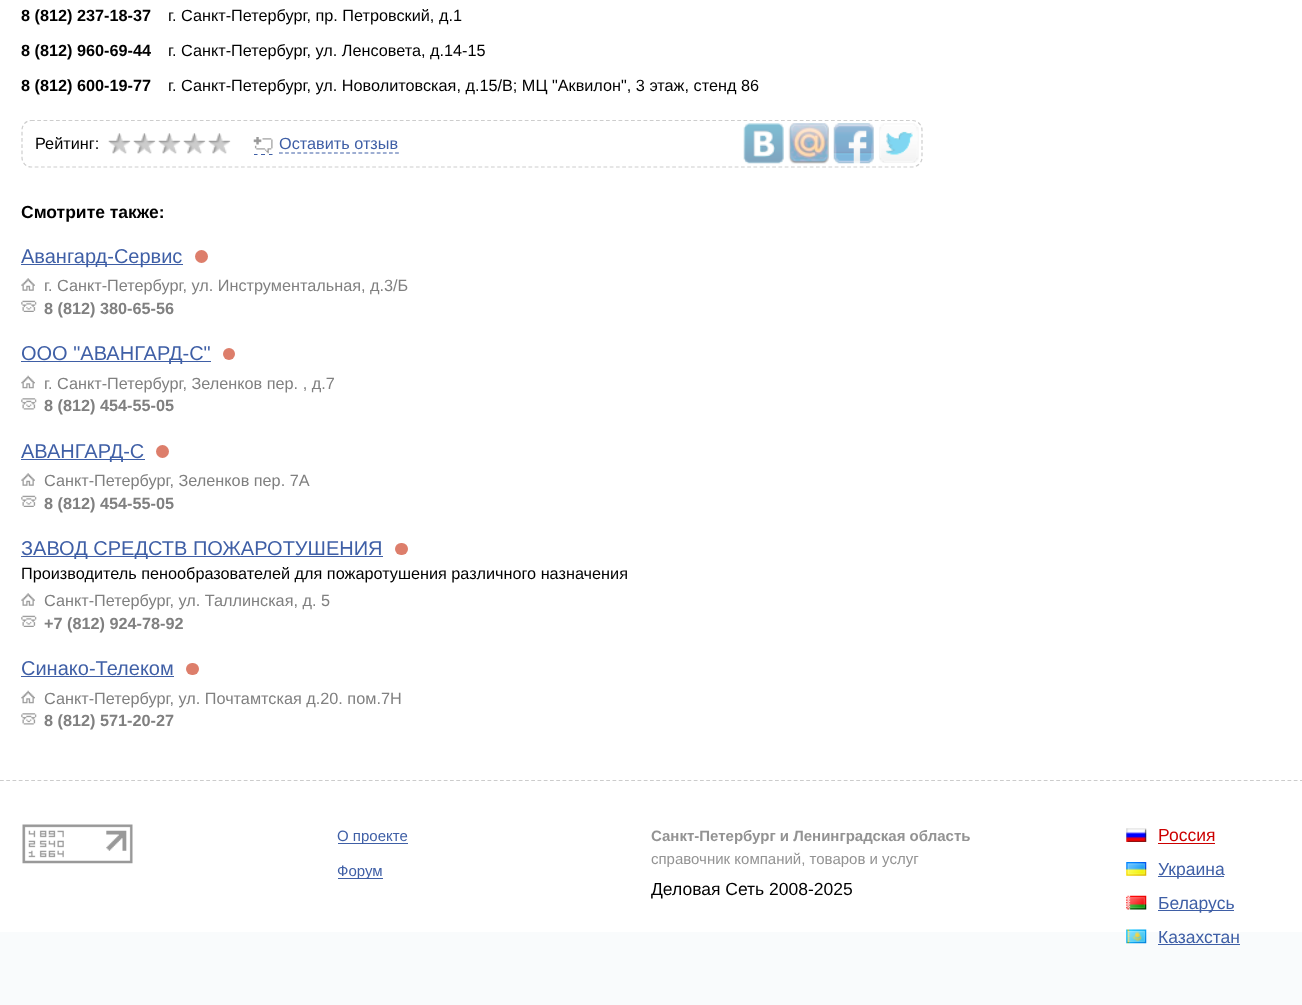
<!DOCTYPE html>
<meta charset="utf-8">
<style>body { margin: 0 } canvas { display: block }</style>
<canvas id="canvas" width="1302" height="1005"></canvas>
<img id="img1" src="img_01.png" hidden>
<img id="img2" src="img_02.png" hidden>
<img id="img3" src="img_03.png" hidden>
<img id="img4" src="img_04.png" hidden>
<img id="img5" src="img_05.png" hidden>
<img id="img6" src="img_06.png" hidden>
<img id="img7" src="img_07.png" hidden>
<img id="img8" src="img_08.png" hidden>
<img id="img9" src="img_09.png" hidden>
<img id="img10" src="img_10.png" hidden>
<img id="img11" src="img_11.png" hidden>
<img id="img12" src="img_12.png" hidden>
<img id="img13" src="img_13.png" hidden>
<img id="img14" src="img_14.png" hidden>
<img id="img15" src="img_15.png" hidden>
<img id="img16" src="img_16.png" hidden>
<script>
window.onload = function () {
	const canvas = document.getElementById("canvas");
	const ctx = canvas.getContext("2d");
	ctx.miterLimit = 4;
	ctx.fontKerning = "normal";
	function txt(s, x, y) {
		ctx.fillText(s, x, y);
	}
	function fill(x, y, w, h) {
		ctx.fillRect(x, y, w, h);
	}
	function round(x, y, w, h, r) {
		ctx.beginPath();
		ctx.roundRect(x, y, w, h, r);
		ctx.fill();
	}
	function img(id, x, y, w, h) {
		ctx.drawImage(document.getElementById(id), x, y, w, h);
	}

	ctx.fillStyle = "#FFFFFF";
	fill(0, 0, 1302, 1005);
	ctx.beginPath();
	ctx.moveTo(31, 120.5);
	ctx.lineTo(912.5, 120.5);
	ctx.bezierCurveTo(917.5, 120.5, 922, 125, 922, 130);
	ctx.lineTo(922, 157.5);
	ctx.bezierCurveTo(922, 162.5, 917.5, 167, 912.5, 167);
	ctx.lineTo(31, 167);
	ctx.bezierCurveTo(26, 167, 22, 162.5, 22, 157.5);
	ctx.lineTo(22, 130);
	ctx.bezierCurveTo(22, 125, 26, 120.5, 31, 120.5);
	ctx.closePath();
	ctx.strokeStyle = "#CDCDCD";
	ctx.lineWidth = 1.2;
	ctx.setLineDash([3.75, 2.5]);
	ctx.stroke();
	img("img1", 108, 133, 23, 21);
	img("img1", 133, 133, 23, 21);
	img("img1", 158, 133, 23, 21);
	img("img2", 183, 133, 23, 21);
	img("img2", 208, 133, 23, 21);
	ctx.beginPath();
	ctx.moveTo(254, 154.5);
	ctx.lineTo(257.5, 154.5);
	ctx.moveTo(261, 154.5);
	ctx.lineTo(265, 154.5);
	ctx.moveTo(269, 154.5);
	ctx.lineTo(272.5, 154.5);
	ctx.strokeStyle = "#3F5FA6";
	ctx.setLineDash([]);
	ctx.stroke();
	ctx.beginPath();
	ctx.moveTo(279, 153);
	ctx.lineTo(399, 153);
	ctx.setLineDash([3.75, 2.36]);
	ctx.stroke();
	img("img3", 253, 137, 20, 17);
	img("img4", 743, 123, 41, 41);
	img("img5", 788, 123, 41, 41);
	img("img6", 833, 123, 41, 41);
	img("img7", 879, 123, 40, 40);
	ctx.fillStyle = "#3F5FA6";
	fill(21, 264, 162, 1);
	ctx.fillStyle = "#DD7E6B";
	ctx.beginPath();
	ctx.arc(201.5, 256.5, 6.5, 0, Math.PI * 2);
	ctx.fill();
	img("img8", 21, 278, 14, 13);
	img("img9", 21, 300, 16, 12);
	ctx.fillStyle = "#3F5FA6";
	fill(21, 361, 190, 1);
	ctx.fillStyle = "#DD7E6B";
	ctx.beginPath();
	ctx.arc(229, 354, 6, 0, Math.PI * 2);
	ctx.fill();
	img("img10", 21, 375, 14, 14);
	img("img11", 21, 398, 16, 12);
	ctx.fillStyle = "#3F5FA6";
	fill(21, 459, 124, 1);
	ctx.fillStyle = "#DD7E6B";
	ctx.beginPath();
	ctx.arc(162.5, 451.5, 6.5, 0, Math.PI * 2);
	ctx.fill();
	img("img8", 21, 473, 14, 13);
	img("img9", 21, 495, 16, 12);
	ctx.fillStyle = "#3F5FA6";
	fill(21, 556, 362, 1);
	ctx.fillStyle = "#DD7E6B";
	round(395, 543, 13, 12, 6);
	img("img8", 21, 593, 14, 13);
	img("img9", 21, 615, 16, 12);
	ctx.fillStyle = "#3F5FA6";
	fill(21, 676, 153, 1);
	ctx.fillStyle = "#DD7E6B";
	round(186, 663, 13, 12, 6);
	img("img10", 21, 690, 14, 14);
	img("img11", 21, 713, 16, 12);
	ctx.fillStyle = "#F9FBFC";
	fill(0, 932, 1302, 73);
	ctx.beginPath();
	ctx.moveTo(0, 780.5);
	ctx.lineTo(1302.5, 780.5);
	ctx.strokeStyle = "#CCCCCC";
	ctx.setLineDash([3.75, 2.5]);
	ctx.stroke();
	img("img12", 22, 824, 111, 40);
	ctx.fillStyle = "#3F5FA6";
	fill(338, 843, 70, 1);
	fill(338, 878, 45, 1);
	img("img13", 1126, 828, 21, 14);
	ctx.fillStyle = "#CC0000";
	fill(1158, 843, 57, 1);
	img("img14", 1126, 862, 21, 14);
	ctx.fillStyle = "#3F5FA6";
	fill(1158, 876, 66, 1);
	img("img15", 1126, 895, 21, 15);
	fill(1158, 910, 76, 1);
	img("img16", 1126, 929, 21, 15);
	fill(1158, 944, 82, 1);
	ctx.font = "bold 16.25px Liberation Sans";
	ctx.fillStyle = "#000000";
	txt("8 (812) 237-18-37", 21, 21);
	ctx.font = "16.25px Liberation Sans";
	txt("г. Санкт-Петербург, пр. Петровский, д.1", 168, 21);
	ctx.font = "bold 16.25px Liberation Sans";
	txt("8 (812) 960-69-44", 21, 56);
	ctx.font = "16.25px Liberation Sans";
	txt("г. Санкт-Петербург, ул. Ленсовета, д.14-15", 168, 56);
	ctx.font = "bold 16.25px Liberation Sans";
	txt("8 (812) 600-19-77", 21, 91);
	ctx.font = "16.25px Liberation Sans";
	txt("г. Санкт-Петербург, ул. Новолитовская, д.15/В; МЦ \"Аквилон\", 3 этаж, стенд 86", 168, 91);
	txt("Рейтинг:", 35, 149);
	ctx.fillStyle = "#3F5FA6";
	txt("Оставить отзыв", 279, 149);
	ctx.font = "bold 17.5px Liberation Sans";
	ctx.fillStyle = "#000000";
	txt("Смотрите также:", 21, 218);
	ctx.font = "20px Liberation Sans";
	ctx.fillStyle = "#3F5FA6";
	txt("Авангард-Сервис", 21, 263);
	ctx.font = "16.25px Liberation Sans";
	ctx.fillStyle = "#808080";
	txt("г. Санкт-Петербург, ул. Инструментальная, д.3/Б", 44, 291);
	ctx.font = "bold 16.25px Liberation Sans";
	txt("8 (812) 380-65-56", 44, 314);
	ctx.font = "20px Liberation Sans";
	ctx.fillStyle = "#3F5FA6";
	txt("ООО \"АВАНГАРД-С\"", 21, 360);
	ctx.font = "16.25px Liberation Sans";
	ctx.fillStyle = "#808080";
	txt("г. Санкт-Петербург, Зеленков пер. , д.7", 44, 389);
	ctx.font = "bold 16.25px Liberation Sans";
	txt("8 (812) 454-55-05", 44, 411);
	ctx.font = "20px Liberation Sans";
	ctx.fillStyle = "#3F5FA6";
	txt("АВАНГАРД-С", 21, 458);
	ctx.font = "16.25px Liberation Sans";
	ctx.fillStyle = "#808080";
	txt("Санкт-Петербург, Зеленков пер. 7А", 44, 486);
	ctx.font = "bold 16.25px Liberation Sans";
	txt("8 (812) 454-55-05", 44, 509);
	ctx.font = "20px Liberation Sans";
	ctx.fillStyle = "#3F5FA6";
	txt("ЗАВОД СРЕДСТВ ПОЖАРОТУШЕНИЯ", 21, 555);
	ctx.font = "16.25px Liberation Sans";
	ctx.fillStyle = "#000000";
	txt("Производитель пенообразователей для пожаротушения различного назначения", 21, 579);
	ctx.fillStyle = "#808080";
	txt("Санкт-Петербург, ул. Таллинская, д. 5", 44, 606);
	ctx.font = "bold 16.25px Liberation Sans";
	txt("+7 (812) 924-78-92", 44, 629);
	ctx.font = "20px Liberation Sans";
	ctx.fillStyle = "#3F5FA6";
	txt("Синако-Телеком", 21, 675);
	ctx.font = "16.25px Liberation Sans";
	ctx.fillStyle = "#808080";
	txt("Санкт-Петербург, ул. Почтамтская д.20. пом.7Н", 44, 704);
	ctx.font = "bold 16.25px Liberation Sans";
	txt("8 (812) 571-20-27", 44, 726);
	ctx.font = "15px Liberation Sans";
	ctx.fillStyle = "#3F5FA6";
	txt("О проекте", 337, 841);
	txt("Форум", 337, 876);
	ctx.font = "bold 15px Liberation Sans";
	ctx.fillStyle = "#939393";
	txt("Санкт-Петербург и Ленинградская область", 651, 841);
	ctx.font = "15px Liberation Sans";
	txt("справочник компаний, товаров и услуг", 651, 864);
	ctx.font = "17.5px Liberation Sans";
	ctx.fillStyle = "#000000";
	txt("Деловая Сеть 2008-2025", 651, 895);
	ctx.fillStyle = "#CC0000";
	txt("Россия", 1158, 841);
	ctx.fillStyle = "#3F5FA6";
	txt("Украина", 1158, 875);
	txt("Беларусь", 1158, 909);
	txt("Казахстан", 1158, 943);
};
</script>
